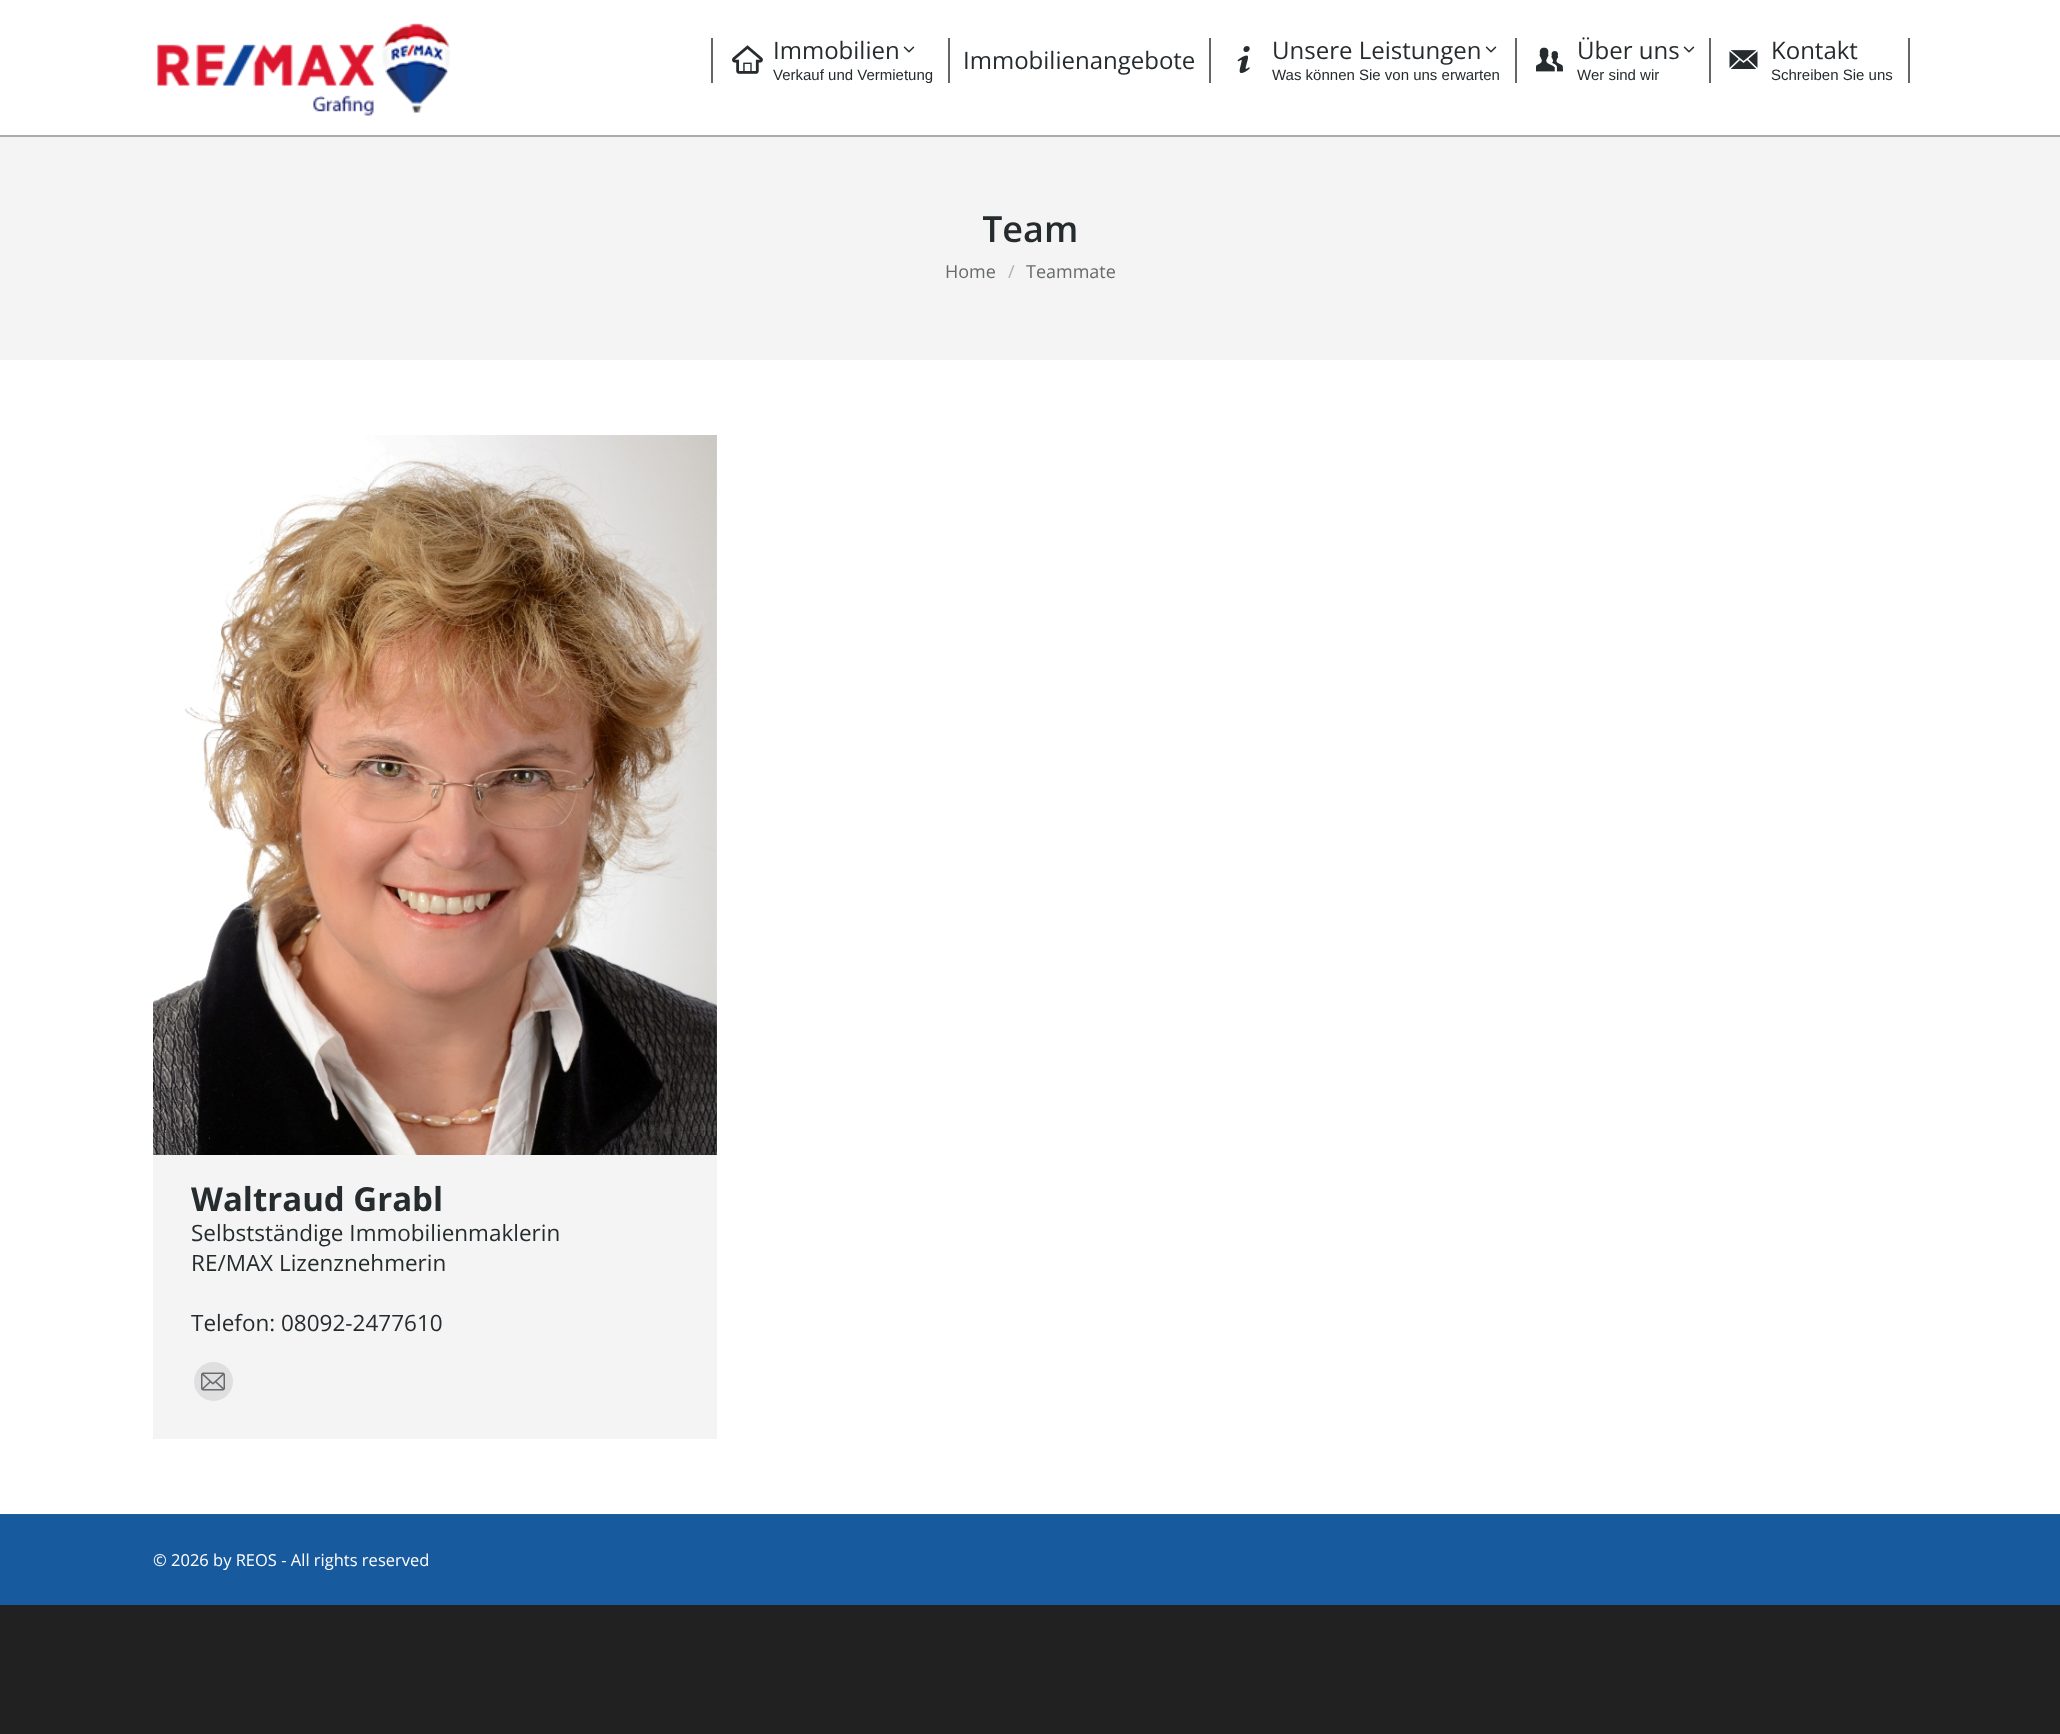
<!DOCTYPE html>
<meta charset="utf-8">
<style>body { margin: 0 } canvas { display: block }</style>
<canvas id="canvas" width="2060" height="1734"></canvas>
<img id="img1" src="img_01.png" hidden>
<img id="img2" src="img_02.png" hidden>
<img id="img3" src="img_03.png" hidden>
<img id="img4" src="img_04.png" hidden>
<img id="img5" src="img_05.png" hidden>
<img id="img6" src="img_06.png" hidden>
<img id="img7" src="img_07.png" hidden>
<img id="img8" src="img_08.png" hidden>
<script>
window.onload = function () {
	const canvas = document.getElementById("canvas");
	const ctx = canvas.getContext("2d");
	ctx.miterLimit = 4;
	ctx.fontKerning = "normal";
	function txt(s, x, y) {
		ctx.fillText(s, x, y);
	}
	function fill(x, y, w, h) {
		ctx.fillRect(x, y, w, h);
	}
	function img(id, x, y, w, h) {
		ctx.drawImage(document.getElementById(id), x, y, w, h);
	}

	ctx.fillStyle = "#212121";
	fill(0, 0, 2060, 1734);
	ctx.fillStyle = "#FFFFFF";
	fill(0, 360, 2060, 1154);
	fill(0, 0, 2060, 135);
	ctx.fillStyle = "#AAAAAA";
	fill(0, 135, 2060, 2);
	img("img1", 157, 23, 293, 93);
	ctx.fillStyle = "#666666";
	fill(711, 38, 2, 45);
	img("img2", 732, 45, 31, 29);
	img("img3", 903, 46, 12, 7);
	fill(948, 38, 2, 45);
	fill(1209, 38, 2, 45);
	img("img4", 1237, 46, 13, 27);
	img("img3", 1485, 46, 12, 7);
	fill(1515, 38, 2, 45);
	img("img5", 1536, 47, 27, 25);
	img("img3", 1683, 46, 12, 7);
	fill(1709, 38, 2, 45);
	img("img6", 1729, 50, 29, 19);
	fill(1908, 38, 2, 45);
	ctx.fillStyle = "#F4F4F4";
	fill(0, 137, 2060, 223);
	fill(153, 435, 564, 1004);
	img("img7", 153, 435, 564, 720);
	ctx.fillStyle = "#DFDFE0";
	ctx.beginPath();
	ctx.arc(213.5, 1381.5, 19.5, 0, Math.PI * 2);
	ctx.fill();
	img("img8", 201, 1372, 24, 19);
	ctx.fillStyle = "#2160A1";
	fill(0, 1514, 2060, 1);
	ctx.fillStyle = "#185A9E";
	fill(0, 1515, 2060, 90);
	ctx.font = "24px Open Sans";
	ctx.fillStyle = "#262B2E";
	txt("Immobilien", 773, 59);
	ctx.font = "15px Liberation Sans";
	txt("Verkauf und Vermietung", 773, 80);
	ctx.font = "24px Open Sans";
	txt("Immobilienangebote", 963, 69);
	txt("Unsere Leistungen", 1272, 59);
	ctx.font = "15px Liberation Sans";
	txt("Was können Sie von uns erwarten", 1272, 80);
	ctx.font = "24px Open Sans";
	txt("Über uns", 1577, 59);
	ctx.font = "15px Liberation Sans";
	txt("Wer sind wir", 1577, 80);
	ctx.font = "24px Open Sans";
	txt("Kontakt", 1771, 59);
	ctx.font = "15px Liberation Sans";
	txt("Schreiben Sie uns", 1771, 80);
	ctx.save();
	ctx.beginPath();
	ctx.rect(983, 206, 96, 48);
	ctx.clip();
	ctx.font = "600 36px Open Sans";
	txt("Team", 982, 242);
	ctx.restore();
	ctx.font = "18px Open Sans";
	ctx.fillStyle = "#676B6D";
	txt("Home", 945, 278);
	ctx.fillStyle = "#AEB0B1";
	txt("/", 1008, 278);
	ctx.fillStyle = "#676B6D";
	txt("Teammate", 1026, 278);
	ctx.font = "bold 33px Open Sans";
	ctx.fillStyle = "#262B2E";
	txt("Waltraud Grabl", 191, 1211);
	ctx.font = "22.5px Open Sans";
	txt("Selbstständige Immobilienmaklerin", 191, 1241);
	txt("RE/MAX Lizenznehmerin", 191, 1271);
	txt("Telefon: 08092-2477610", 191, 1331);
	ctx.font = "16.5px Open Sans";
	ctx.fillStyle = "#FFFFFF";
	txt("© 2026 by REOS - All rights reserved", 153, 1566);
};
</script>
